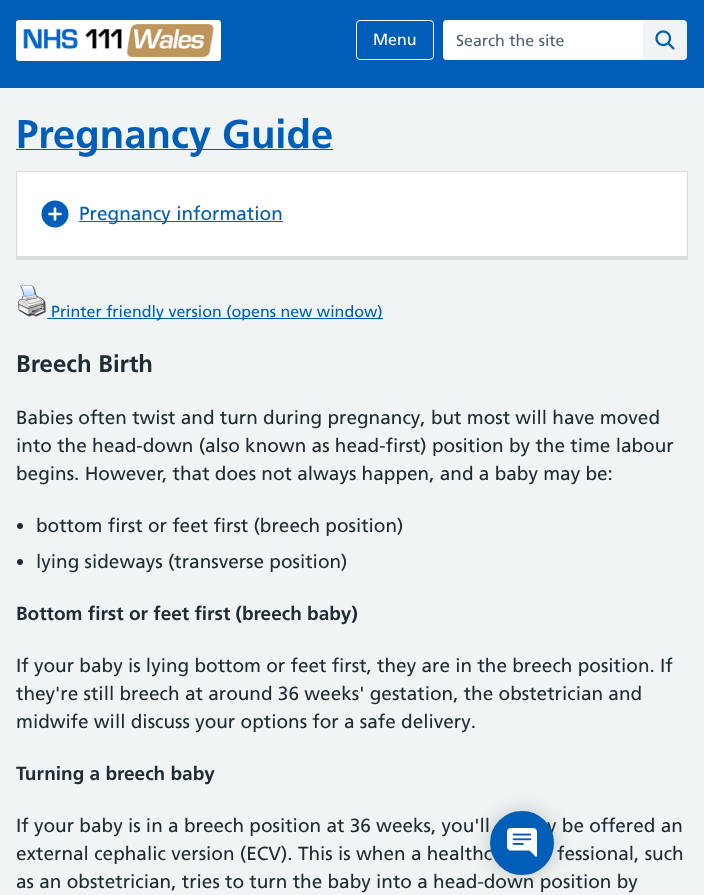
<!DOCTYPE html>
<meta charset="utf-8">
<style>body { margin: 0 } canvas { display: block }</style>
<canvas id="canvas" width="704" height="895"></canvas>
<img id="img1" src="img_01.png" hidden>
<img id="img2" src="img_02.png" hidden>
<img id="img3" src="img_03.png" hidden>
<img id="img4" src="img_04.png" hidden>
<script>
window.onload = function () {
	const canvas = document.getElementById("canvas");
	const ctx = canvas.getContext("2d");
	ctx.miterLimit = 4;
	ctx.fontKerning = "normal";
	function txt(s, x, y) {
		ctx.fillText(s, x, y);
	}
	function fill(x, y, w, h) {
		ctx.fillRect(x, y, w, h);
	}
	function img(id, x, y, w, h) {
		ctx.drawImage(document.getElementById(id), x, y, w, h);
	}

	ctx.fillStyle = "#F0F4F5";
	fill(0, 0, 704, 895);
	ctx.fillStyle = "#005EB8";
	fill(0, 0, 704, 88);
	img("img1", 16, 20, 205, 41);
	ctx.beginPath();
	ctx.roundRect(356.5, 20.5, 77, 39, 3.5);
	ctx.strokeStyle = "#FFFFFF";
	ctx.stroke();
	ctx.fillStyle = "#FFFFFF";
	ctx.beginPath();
	ctx.roundRect(443, 20, 200, 40, [4, 0, 0, 4]);
	ctx.fill();
	ctx.beginPath();
	ctx.moveTo(447, 20);
	ctx.lineTo(643, 20);
	ctx.lineTo(643, 60);
	ctx.lineTo(447, 60);
	ctx.bezierCurveTo(445, 60, 443, 58, 443, 56);
	ctx.lineTo(443, 24);
	ctx.bezierCurveTo(443, 22, 445, 20, 447, 20);
	ctx.closePath();
	ctx.moveTo(447, 21);
	ctx.lineTo(643, 21);
	ctx.lineTo(643, 59);
	ctx.lineTo(447, 59);
	ctx.bezierCurveTo(445, 59, 444, 58, 444, 56);
	ctx.lineTo(444, 24);
	ctx.bezierCurveTo(444, 22, 445, 21, 447, 21);
	ctx.closePath();
	ctx.fill("evenodd");
	ctx.fillStyle = "#F0F4F5";
	ctx.beginPath();
	ctx.roundRect(643, 20, 44, 40, [0, 4, 4, 0]);
	ctx.fill();
	img("img2", 655, 30, 20, 20);
	ctx.fillStyle = "#005EB8";
	fill(16, 149, 317, 1);
	ctx.fillStyle = "#FFFFFF";
	fill(17, 172, 670, 84);
	ctx.fillStyle = "#D8DDE0";
	fill(16, 171, 672, 1);
	fill(687, 171, 1, 89);
	fill(16, 256, 672, 4);
	fill(16, 171, 1, 89);
	ctx.fillStyle = "#005EB8";
	ctx.beginPath();
	ctx.arc(55, 214, 13.5, 0, Math.PI * 2);
	ctx.fill();
	ctx.beginPath();
	ctx.moveTo(55, 208.5);
	ctx.lineTo(55, 219.5);
	ctx.moveTo(49.5, 214);
	ctx.lineTo(60.5, 214);
	ctx.lineWidth = 2.7;
	ctx.lineCap = "round";
	ctx.stroke();
	fill(79, 221, 204, 1);
	img("img3", 18, 285, 29, 32);
	fill(47, 318, 336, 1);
	ctx.fillStyle = "#212B32";
	ctx.beginPath();
	ctx.arc(20, 526, 3, 0, Math.PI * 2);
	ctx.fill();
	ctx.beginPath();
	ctx.arc(20, 562, 3, 0, Math.PI * 2);
	ctx.fill();
	ctx.fillStyle = "rgba(0, 0, 0, 0.2)";
	ctx.filter = "blur(10px)";
	ctx.beginPath();
	ctx.roundRect(490, 811, 64, 64, 32);
	ctx.fill();
	ctx.filter = "none";
	ctx.font = "16px Frutiger";
	ctx.fillStyle = "#FFFFFF";
	txt("Menu", 373, 45);
	ctx.fillStyle = "#4C6272";
	txt("Search the site", 456, 46);
	ctx.font = "bold 40px Frutiger";
	ctx.fillStyle = "#005EB8";
	txt("Pregnancy Guide", 16, 148);
	ctx.font = "19px Frutiger";
	txt("Pregnancy information", 79, 220);
	ctx.font = "16px Frutiger";
	txt("Printer friendly version (opens new window)", 51, 317);
	ctx.font = "bold 24px Frutiger";
	ctx.fillStyle = "#212B32";
	txt("Breech Birth", 16, 372);
	ctx.font = "19px Frutiger";
	txt("Babies often twist and turn during pregnancy, but most will have moved", 16, 424);
	txt("into the head-down (also known as head-first) position by the time labour", 16, 452);
	txt("begins. However, that does not always happen, and a baby may be:", 16, 480);
	txt("bottom first or feet first (breech position)", 36, 532);
	txt("lying sideways (transverse position)", 36, 568);
	ctx.font = "bold 19px Frutiger";
	txt("Bottom first or feet first (breech baby)", 16, 620);
	ctx.font = "19px Frutiger";
	txt("If your baby is lying bottom or feet first, they are in the breech position. If", 16, 672);
	txt("they're still breech at around 36 weeks' gestation, the obstetrician and", 16, 700);
	txt("midwife will discuss your options for a safe delivery.", 16, 728);
	ctx.font = "bold 19px Frutiger";
	txt("Turning a breech baby", 16, 780);
	ctx.font = "19px Frutiger";
	txt("If your baby is in a breech position at 36 weeks, you'll", 16, 832);
	txt("y be offered an", 547, 832);
	txt("external cephalic version (ECV). This is when a healthc", 16, 860);
	txt("fessional, such", 557, 860);
	txt("as an obstetrician, tries to turn the baby into a head-down position by", 16, 888);
	ctx.fillStyle = "#005EB8";
	ctx.beginPath();
	ctx.arc(522, 843, 31, 0, Math.PI * 2);
	ctx.fill();
	ctx.strokeStyle = "#005EB8";
	ctx.lineWidth = 2;
	ctx.stroke();
	img("img4", 507, 828, 30, 29);
};
</script>
